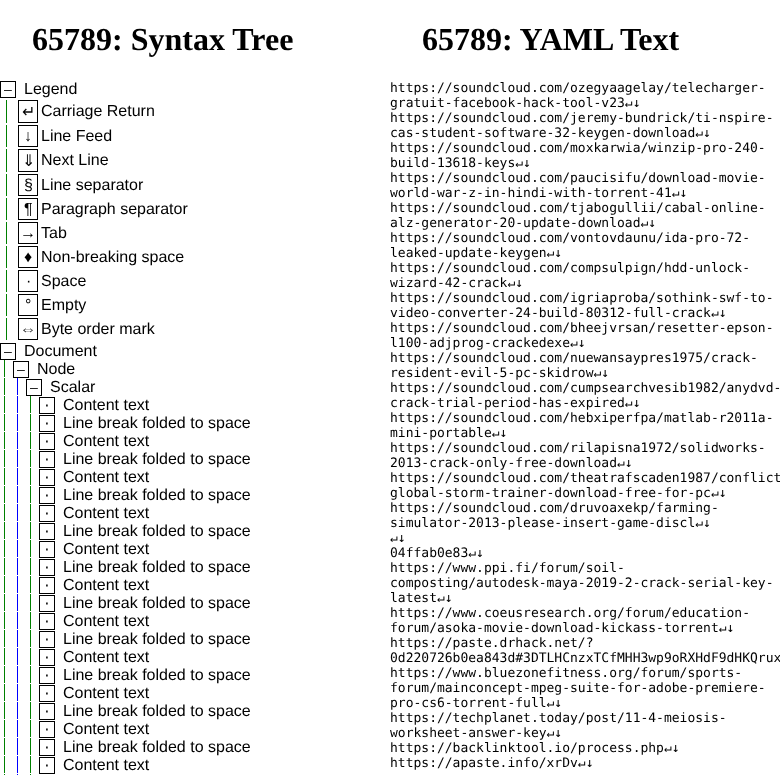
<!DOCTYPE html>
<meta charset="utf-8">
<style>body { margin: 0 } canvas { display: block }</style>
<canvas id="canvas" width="780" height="775"></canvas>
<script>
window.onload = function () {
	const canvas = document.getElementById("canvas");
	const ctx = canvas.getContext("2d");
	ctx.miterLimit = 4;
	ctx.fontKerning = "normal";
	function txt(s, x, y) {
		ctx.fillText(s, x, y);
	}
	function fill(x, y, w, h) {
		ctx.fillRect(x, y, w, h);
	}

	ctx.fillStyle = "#FFFFFF";
	fill(0, 0, 780, 775);
	ctx.strokeStyle = "#000000";
	ctx.strokeRect(0.5, 81.5, 15, 16);
	ctx.fillStyle = "#008000";
	fill(6, 100, 1, 23);
	ctx.strokeRect(18.5, 100.5, 19, 22);
	fill(6, 125, 1, 22);
	ctx.strokeRect(18.5, 125.5, 19, 21);
	fill(6, 149, 1, 23);
	ctx.strokeRect(18.5, 149.5, 19, 22);
	fill(6, 174, 1, 22);
	ctx.strokeRect(18.5, 174.5, 19, 21);
	fill(6, 198, 1, 22);
	ctx.strokeRect(18.5, 198.5, 19, 21);
	fill(6, 222, 1, 22);
	ctx.strokeRect(18.5, 222.5, 19, 21);
	fill(6, 246, 1, 22);
	ctx.strokeRect(18.5, 246.5, 19, 21);
	fill(6, 270, 1, 22);
	ctx.strokeRect(18.5, 270.5, 19, 21);
	fill(6, 294, 1, 22);
	ctx.strokeRect(18.5, 294.5, 19, 21);
	fill(6, 318, 1, 22);
	ctx.strokeRect(18.5, 318.5, 19, 21);
	ctx.strokeRect(0.5, 343.5, 15, 16);
	fill(4, 360, 1, 17);
	ctx.strokeRect(13.5, 361.5, 15, 16);
	fill(4, 378, 1, 17);
	ctx.fillStyle = "#0000FF";
	fill(17, 378, 1, 17);
	ctx.strokeRect(26.5, 379.5, 15, 16);
	ctx.fillStyle = "#008000";
	fill(4, 396, 1, 17);
	ctx.fillStyle = "#0000FF";
	fill(17, 396, 1, 17);
	ctx.fillStyle = "#008000";
	fill(30, 396, 1, 17);
	ctx.strokeRect(39.5, 397.5, 15, 16);
	fill(4, 414, 1, 17);
	ctx.fillStyle = "#0000FF";
	fill(17, 414, 1, 17);
	ctx.fillStyle = "#008000";
	fill(30, 414, 1, 17);
	ctx.strokeRect(39.5, 415.5, 15, 16);
	fill(4, 432, 1, 17);
	ctx.fillStyle = "#0000FF";
	fill(17, 432, 1, 17);
	ctx.fillStyle = "#008000";
	fill(30, 432, 1, 17);
	ctx.strokeRect(39.5, 433.5, 15, 16);
	fill(4, 450, 1, 17);
	ctx.fillStyle = "#0000FF";
	fill(17, 450, 1, 17);
	ctx.fillStyle = "#008000";
	fill(30, 450, 1, 17);
	ctx.strokeRect(39.5, 451.5, 15, 16);
	fill(4, 468, 1, 17);
	ctx.fillStyle = "#0000FF";
	fill(17, 468, 1, 17);
	ctx.fillStyle = "#008000";
	fill(30, 468, 1, 17);
	ctx.strokeRect(39.5, 469.5, 15, 16);
	fill(4, 486, 1, 17);
	ctx.fillStyle = "#0000FF";
	fill(17, 486, 1, 17);
	ctx.fillStyle = "#008000";
	fill(30, 486, 1, 17);
	ctx.strokeRect(39.5, 487.5, 15, 16);
	fill(4, 504, 1, 17);
	ctx.fillStyle = "#0000FF";
	fill(17, 504, 1, 17);
	ctx.fillStyle = "#008000";
	fill(30, 504, 1, 17);
	ctx.strokeRect(39.5, 505.5, 15, 16);
	fill(4, 522, 1, 17);
	ctx.fillStyle = "#0000FF";
	fill(17, 522, 1, 17);
	ctx.fillStyle = "#008000";
	fill(30, 522, 1, 17);
	ctx.strokeRect(39.5, 523.5, 15, 16);
	fill(4, 540, 1, 17);
	ctx.fillStyle = "#0000FF";
	fill(17, 540, 1, 17);
	ctx.fillStyle = "#008000";
	fill(30, 540, 1, 17);
	ctx.strokeRect(39.5, 541.5, 15, 16);
	fill(4, 558, 1, 17);
	ctx.fillStyle = "#0000FF";
	fill(17, 558, 1, 17);
	ctx.fillStyle = "#008000";
	fill(30, 558, 1, 17);
	ctx.strokeRect(39.5, 559.5, 15, 16);
	fill(4, 576, 1, 17);
	ctx.fillStyle = "#0000FF";
	fill(17, 576, 1, 17);
	ctx.fillStyle = "#008000";
	fill(30, 576, 1, 17);
	ctx.strokeRect(39.5, 577.5, 15, 16);
	fill(4, 594, 1, 17);
	ctx.fillStyle = "#0000FF";
	fill(17, 594, 1, 17);
	ctx.fillStyle = "#008000";
	fill(30, 594, 1, 17);
	ctx.strokeRect(39.5, 595.5, 15, 16);
	fill(4, 612, 1, 17);
	ctx.fillStyle = "#0000FF";
	fill(17, 612, 1, 17);
	ctx.fillStyle = "#008000";
	fill(30, 612, 1, 17);
	ctx.strokeRect(39.5, 613.5, 15, 16);
	fill(4, 630, 1, 17);
	ctx.fillStyle = "#0000FF";
	fill(17, 630, 1, 17);
	ctx.fillStyle = "#008000";
	fill(30, 630, 1, 17);
	ctx.strokeRect(39.5, 631.5, 15, 16);
	fill(4, 648, 1, 17);
	ctx.fillStyle = "#0000FF";
	fill(17, 648, 1, 17);
	ctx.fillStyle = "#008000";
	fill(30, 648, 1, 17);
	ctx.strokeRect(39.5, 649.5, 15, 16);
	fill(4, 666, 1, 17);
	ctx.fillStyle = "#0000FF";
	fill(17, 666, 1, 17);
	ctx.fillStyle = "#008000";
	fill(30, 666, 1, 17);
	ctx.strokeRect(39.5, 667.5, 15, 16);
	fill(4, 684, 1, 17);
	ctx.fillStyle = "#0000FF";
	fill(17, 684, 1, 17);
	ctx.fillStyle = "#008000";
	fill(30, 684, 1, 17);
	ctx.strokeRect(39.5, 685.5, 15, 16);
	fill(4, 702, 1, 17);
	ctx.fillStyle = "#0000FF";
	fill(17, 702, 1, 17);
	ctx.fillStyle = "#008000";
	fill(30, 702, 1, 17);
	ctx.strokeRect(39.5, 703.5, 15, 16);
	fill(4, 720, 1, 17);
	ctx.fillStyle = "#0000FF";
	fill(17, 720, 1, 17);
	ctx.fillStyle = "#008000";
	fill(30, 720, 1, 17);
	ctx.strokeRect(39.5, 721.5, 15, 16);
	fill(4, 738, 1, 17);
	ctx.fillStyle = "#0000FF";
	fill(17, 738, 1, 17);
	ctx.fillStyle = "#008000";
	fill(30, 738, 1, 17);
	ctx.strokeRect(39.5, 739.5, 15, 16);
	fill(4, 756, 1, 17);
	ctx.fillStyle = "#0000FF";
	fill(17, 756, 1, 17);
	ctx.fillStyle = "#008000";
	fill(30, 756, 1, 17);
	ctx.strokeRect(39.5, 757.5, 15, 16);
	fill(4, 774, 1, 1);
	ctx.fillStyle = "#0000FF";
	fill(17, 774, 1, 1);
	ctx.fillStyle = "#008000";
	fill(30, 774, 1, 1);
	ctx.font = "bold 32px Liberation Serif";
	ctx.fillStyle = "#000000";
	txt("65789: Syntax Tree", 32, 50);
	ctx.font = "13px DejaVu Sans Mono";
	txt("—", 4, 94);
	ctx.font = "16px Liberation Sans";
	txt("Legend", 24, 94);
	ctx.font = "16px DejaVu Sans";
	txt("↵", 22, 117);
	ctx.font = "16px Liberation Sans";
	txt("Carriage Return", 41, 116);
	txt("↓", 24, 141);
	txt("Line Feed", 41, 141);
	ctx.font = "16px DejaVu Sans";
	txt("⇓", 22, 166);
	ctx.font = "16px Liberation Sans";
	txt("Next Line", 41, 165);
	txt("§", 24, 190);
	txt("Line separator", 41, 190);
	txt("¶", 24, 214);
	txt("Paragraph separator", 41, 214);
	txt("→", 20, 238);
	txt("Tab", 41, 238);
	txt("♦", 24, 262);
	txt("Non-breaking space", 41, 262);
	txt("·", 26, 286);
	txt("Space", 41, 286);
	txt("°", 25, 310);
	txt("Empty", 41, 310);
	txt("⇔", 20, 334);
	txt("Byte order mark", 41, 334);
	ctx.font = "13px DejaVu Sans Mono";
	txt("—", 4, 356);
	ctx.font = "16px Liberation Sans";
	txt("Document", 24, 356);
	ctx.font = "13px DejaVu Sans Mono";
	txt("—", 17, 374);
	ctx.font = "16px Liberation Sans";
	txt("Node", 37, 374);
	ctx.font = "13px DejaVu Sans Mono";
	txt("—", 30, 392);
	ctx.font = "16px Liberation Sans";
	txt("Scalar", 50, 392);
	ctx.font = "13px DejaVu Sans Mono";
	txt("·", 43, 410);
	ctx.font = "16px Liberation Sans";
	txt("Content text", 63, 410);
	ctx.font = "13px DejaVu Sans Mono";
	txt("·", 43, 428);
	ctx.font = "16px Liberation Sans";
	txt("Line break folded to space", 63, 428);
	ctx.font = "13px DejaVu Sans Mono";
	txt("·", 43, 446);
	ctx.font = "16px Liberation Sans";
	txt("Content text", 63, 446);
	ctx.font = "13px DejaVu Sans Mono";
	txt("·", 43, 464);
	ctx.font = "16px Liberation Sans";
	txt("Line break folded to space", 63, 464);
	ctx.font = "13px DejaVu Sans Mono";
	txt("·", 43, 482);
	ctx.font = "16px Liberation Sans";
	txt("Content text", 63, 482);
	ctx.font = "13px DejaVu Sans Mono";
	txt("·", 43, 500);
	ctx.font = "16px Liberation Sans";
	txt("Line break folded to space", 63, 500);
	ctx.font = "13px DejaVu Sans Mono";
	txt("·", 43, 518);
	ctx.font = "16px Liberation Sans";
	txt("Content text", 63, 518);
	ctx.font = "13px DejaVu Sans Mono";
	txt("·", 43, 536);
	ctx.font = "16px Liberation Sans";
	txt("Line break folded to space", 63, 536);
	ctx.font = "13px DejaVu Sans Mono";
	txt("·", 43, 554);
	ctx.font = "16px Liberation Sans";
	txt("Content text", 63, 554);
	ctx.font = "13px DejaVu Sans Mono";
	txt("·", 43, 572);
	ctx.font = "16px Liberation Sans";
	txt("Line break folded to space", 63, 572);
	ctx.font = "13px DejaVu Sans Mono";
	txt("·", 43, 590);
	ctx.font = "16px Liberation Sans";
	txt("Content text", 63, 590);
	ctx.font = "13px DejaVu Sans Mono";
	txt("·", 43, 608);
	ctx.font = "16px Liberation Sans";
	txt("Line break folded to space", 63, 608);
	ctx.font = "13px DejaVu Sans Mono";
	txt("·", 43, 626);
	ctx.font = "16px Liberation Sans";
	txt("Content text", 63, 626);
	ctx.font = "13px DejaVu Sans Mono";
	txt("·", 43, 644);
	ctx.font = "16px Liberation Sans";
	txt("Line break folded to space", 63, 644);
	ctx.font = "13px DejaVu Sans Mono";
	txt("·", 43, 662);
	ctx.font = "16px Liberation Sans";
	txt("Content text", 63, 662);
	ctx.font = "13px DejaVu Sans Mono";
	txt("·", 43, 680);
	ctx.font = "16px Liberation Sans";
	txt("Line break folded to space", 63, 680);
	ctx.font = "13px DejaVu Sans Mono";
	txt("·", 43, 698);
	ctx.font = "16px Liberation Sans";
	txt("Content text", 63, 698);
	ctx.font = "13px DejaVu Sans Mono";
	txt("·", 43, 716);
	ctx.font = "16px Liberation Sans";
	txt("Line break folded to space", 63, 716);
	ctx.font = "13px DejaVu Sans Mono";
	txt("·", 43, 734);
	ctx.font = "16px Liberation Sans";
	txt("Content text", 63, 734);
	ctx.font = "13px DejaVu Sans Mono";
	txt("·", 43, 752);
	ctx.font = "16px Liberation Sans";
	txt("Line break folded to space", 63, 752);
	ctx.font = "13px DejaVu Sans Mono";
	txt("·", 43, 770);
	ctx.font = "16px Liberation Sans";
	txt("Content text", 63, 770);
	ctx.font = "bold 32px Liberation Serif";
	txt("65789: YAML Text", 422, 50);
	ctx.font = "13px DejaVu Sans Mono";
	txt("https://soundcloud.com/ozegyaagelay/telecharger-", 390, 92);
	txt("gratuit-facebook-hack-tool-v23↵↓", 390, 107);
	txt("https://soundcloud.com/jeremy-bundrick/ti-nspire-", 390, 122);
	txt("cas-student-software-32-keygen-download↵↓", 390, 137);
	txt("https://soundcloud.com/moxkarwia/winzip-pro-240-", 390, 152);
	txt("build-13618-keys↵↓", 390, 167);
	txt("https://soundcloud.com/paucisifu/download-movie-", 390, 182);
	txt("world-war-z-in-hindi-with-torrent-41↵↓", 390, 197);
	txt("https://soundcloud.com/tjabogullii/cabal-online-", 390, 212);
	txt("alz-generator-20-update-download↵↓", 390, 227);
	txt("https://soundcloud.com/vontovdaunu/ida-pro-72-", 390, 242);
	txt("leaked-update-keygen↵↓", 390, 257);
	txt("https://soundcloud.com/compsulpign/hdd-unlock-", 390, 272);
	txt("wizard-42-crack↵↓", 390, 287);
	txt("https://soundcloud.com/igriaproba/sothink-swf-to-", 390, 302);
	txt("video-converter-24-build-80312-full-crack↵↓", 390, 317);
	txt("https://soundcloud.com/bheejvrsan/resetter-epson-", 390, 332);
	txt("l100-adjprog-crackedexe↵↓", 390, 347);
	txt("https://soundcloud.com/nuewansaypres1975/crack-", 390, 362);
	txt("resident-evil-5-pc-skidrow↵↓", 390, 377);
	txt("https://soundcloud.com/cumpsearchvesib1982/anydvd-", 390, 392);
	txt("crack-trial-period-has-expired↵↓", 390, 407);
	txt("https://soundcloud.com/hebxiperfpa/matlab-r2011a-", 390, 422);
	txt("mini-portable↵↓", 390, 437);
	txt("https://soundcloud.com/rilapisna1972/solidworks-", 390, 452);
	txt("2013-crack-only-free-download↵↓", 390, 467);
	txt("https://soundcloud.com/theatrafscaden1987/conflict", 390, 482);
	txt("global-storm-trainer-download-free-for-pc↵↓", 390, 497);
	txt("https://soundcloud.com/druvoaxekp/farming-", 390, 512);
	txt("simulator-2013-please-insert-game-discl↵↓", 390, 527);
	txt("↵↓", 390, 542);
	txt("04ffab0e83↵↓", 390, 557);
	txt("https://www.ppi.fi/forum/soil-", 390, 572);
	txt("composting/autodesk-maya-2019-2-crack-serial-key-", 390, 587);
	txt("latest↵↓", 390, 602);
	txt("https://www.coeusresearch.org/forum/education-", 390, 617);
	txt("forum/asoka-movie-download-kickass-torrent↵↓", 390, 632);
	txt("https://paste.drhack.net/?", 390, 647);
	txt("0d220726b0ea843d#3DTLHCnzxTCfMHH3wp9oRXHdF9dHKQrux", 390, 662);
	txt("https://www.bluezonefitness.org/forum/sports-", 390, 677);
	txt("forum/mainconcept-mpeg-suite-for-adobe-premiere-", 390, 692);
	txt("pro-cs6-torrent-full↵↓", 390, 707);
	txt("https://techplanet.today/post/11-4-meiosis-", 390, 722);
	txt("worksheet-answer-key↵↓", 390, 737);
	txt("https://backlinktool.io/process.php↵↓", 390, 752);
	txt("https://apaste.info/xrDv↵↓", 390, 767);
};
</script>
